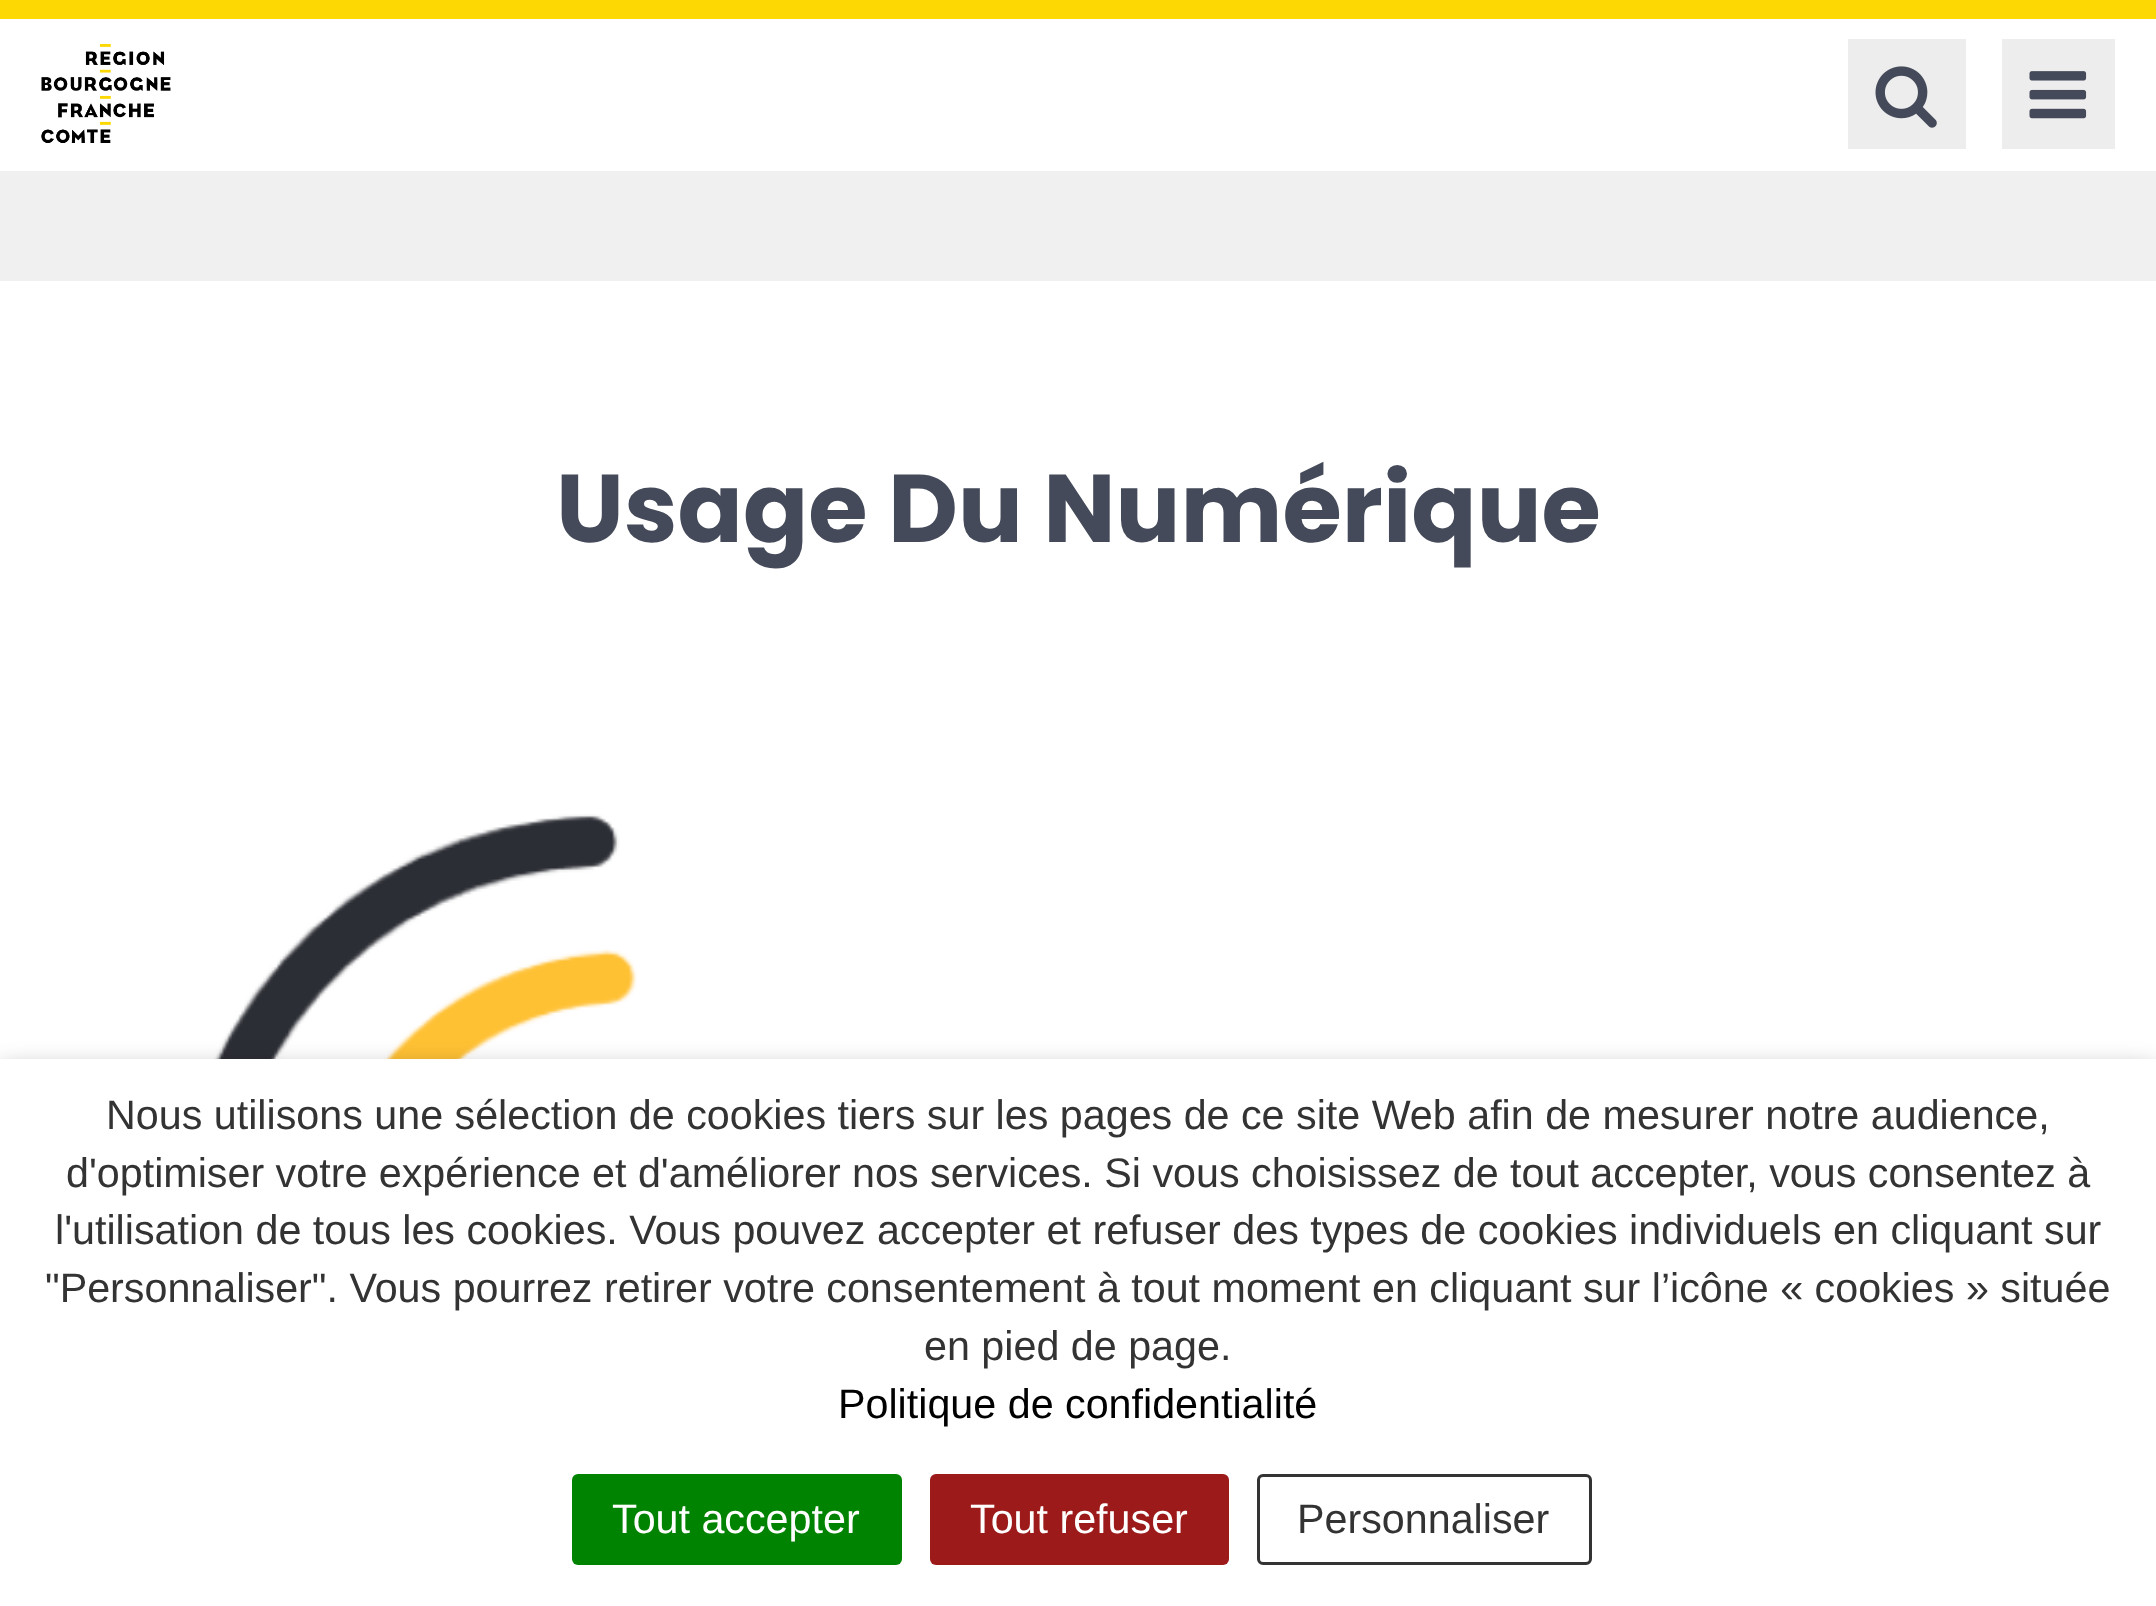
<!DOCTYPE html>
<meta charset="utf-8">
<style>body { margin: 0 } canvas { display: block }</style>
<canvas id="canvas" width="2156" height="1606"></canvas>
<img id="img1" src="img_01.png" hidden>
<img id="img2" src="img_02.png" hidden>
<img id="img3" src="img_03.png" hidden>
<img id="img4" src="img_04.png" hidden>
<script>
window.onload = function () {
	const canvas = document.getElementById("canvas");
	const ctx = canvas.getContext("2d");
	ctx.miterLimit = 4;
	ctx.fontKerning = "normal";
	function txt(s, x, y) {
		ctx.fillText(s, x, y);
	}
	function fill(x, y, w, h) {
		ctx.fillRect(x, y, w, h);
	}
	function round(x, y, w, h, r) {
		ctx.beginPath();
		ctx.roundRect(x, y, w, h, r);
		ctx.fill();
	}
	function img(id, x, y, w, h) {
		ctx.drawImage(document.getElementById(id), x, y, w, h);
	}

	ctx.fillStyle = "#F0F0F0";
	fill(0, 0, 2156, 1606);
	ctx.fillStyle = "#FFFFFF";
	fill(0, 19, 2156, 152);
	ctx.fillStyle = "#FDD803";
	fill(0, 0, 2156, 19);
	img("img1", 41, 44, 130, 99);
	ctx.fillStyle = "#EDEDED";
	fill(1848, 39, 118, 110);
	img("img2", 1875, 66, 62, 62);
	fill(2002, 39, 113, 110);
	img("img3", 2029, 71, 58, 48);
	ctx.fillStyle = "#FFFFFF";
	fill(0, 281, 2156, 778);
	img("img4", 173, 814, 516, 245);
	ctx.fillStyle = "rgba(0, 0, 0, 0.5)";
	ctx.filter = "blur(14px)";
	ctx.beginPath();
	ctx.rect(0, 1073, 2156, 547);
	ctx.fill();
	ctx.filter = "none";
	ctx.fillStyle = "#FFFFFF";
	fill(0, 1059, 2156, 547);
	ctx.fillStyle = "#008300";
	round(572, 1474, 330, 91, 6);
	ctx.fillStyle = "#9C1A1A";
	round(930, 1474, 299, 91, 6);
	ctx.beginPath();
	ctx.roundRect(1258.5, 1475.5, 332, 88, 4.5);
	ctx.strokeStyle = "#333333";
	ctx.lineWidth = 3;
	ctx.stroke();
	ctx.font = "bold 96.25px Poppins";
	ctx.fillStyle = "#444A59";
	txt("Usage Du Numérique", 556, 542);
	ctx.font = "41.25px Liberation Sans";
	ctx.fillStyle = "#333333";
	txt("Nous utilisons une sélection de cookies tiers sur les pages de ce site Web afin de mesurer notre audience,", 106, 1129);
	txt("d'optimiser votre expérience et d'améliorer nos services. Si vous choisissez de tout accepter, vous consentez à", 66, 1187);
	txt("l'utilisation de tous les cookies. Vous pouvez accepter et refuser des types de cookies individuels en cliquant sur", 55, 1244);
	txt("\"Personnaliser\". Vous pourrez retirer votre consentement à tout moment en cliquant sur l’icône « cookies » située", 45, 1302);
	txt("en pied de page.", 924, 1360);
	ctx.fillStyle = "#000000";
	txt("Politique de confidentialité", 838, 1418);
	ctx.fillStyle = "#FFFFFF";
	txt("Tout accepter", 612, 1533);
	txt("Tout refuser", 970, 1533);
	ctx.fillStyle = "#333333";
	txt("Personnaliser", 1297, 1533);
};
</script>
